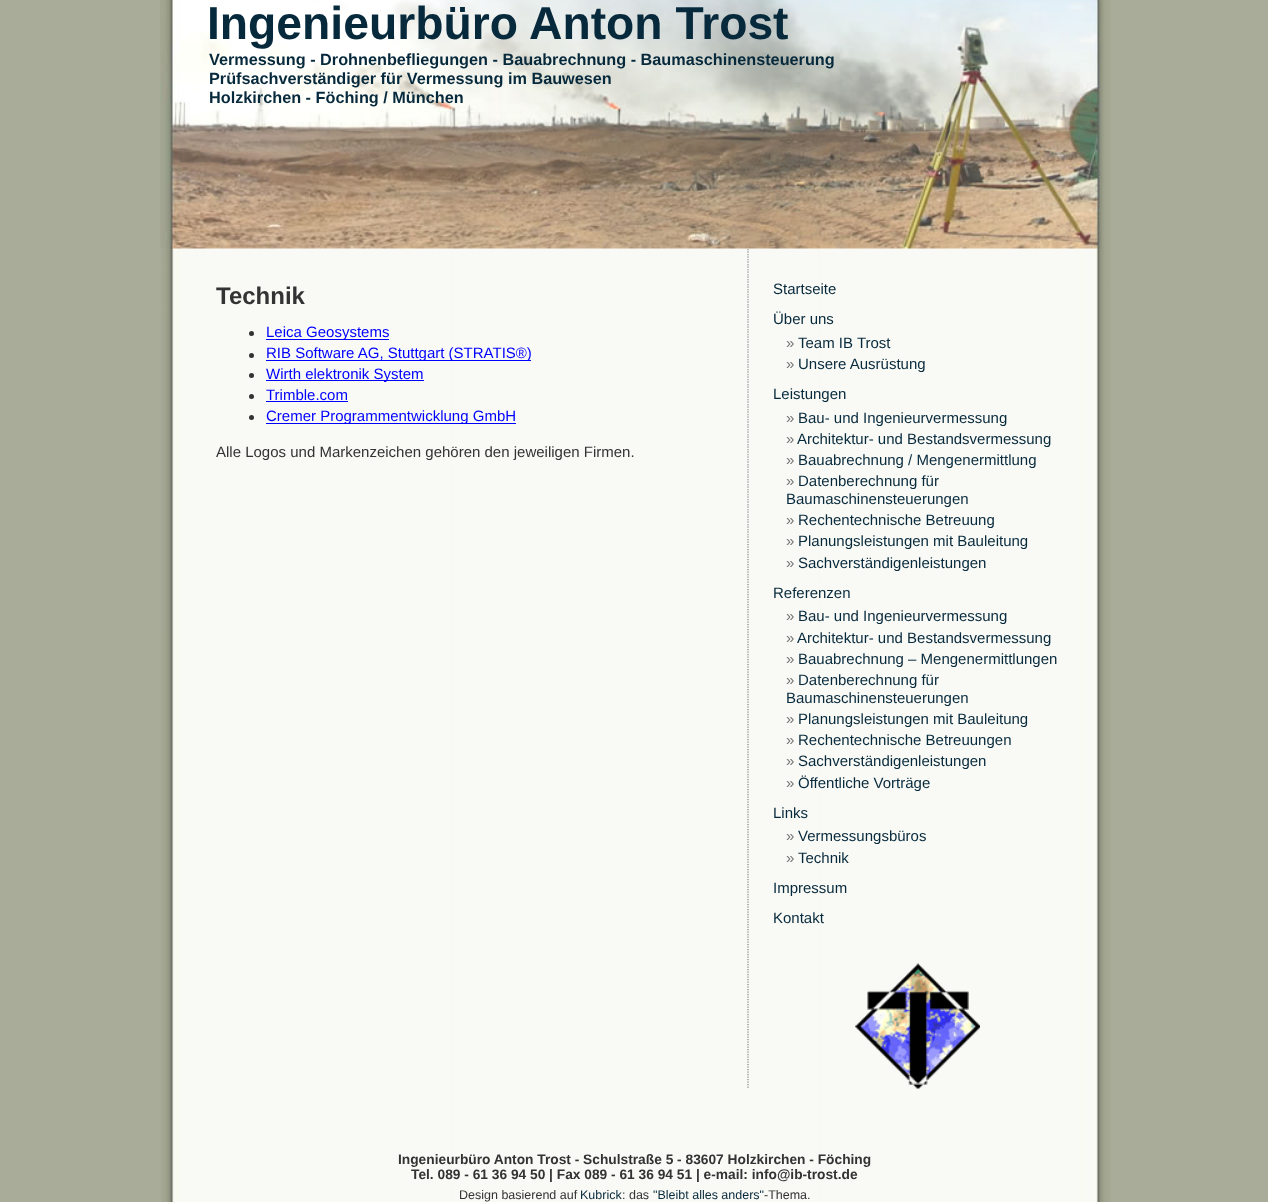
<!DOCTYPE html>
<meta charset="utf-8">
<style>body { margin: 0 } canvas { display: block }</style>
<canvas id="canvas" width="1268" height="1202"></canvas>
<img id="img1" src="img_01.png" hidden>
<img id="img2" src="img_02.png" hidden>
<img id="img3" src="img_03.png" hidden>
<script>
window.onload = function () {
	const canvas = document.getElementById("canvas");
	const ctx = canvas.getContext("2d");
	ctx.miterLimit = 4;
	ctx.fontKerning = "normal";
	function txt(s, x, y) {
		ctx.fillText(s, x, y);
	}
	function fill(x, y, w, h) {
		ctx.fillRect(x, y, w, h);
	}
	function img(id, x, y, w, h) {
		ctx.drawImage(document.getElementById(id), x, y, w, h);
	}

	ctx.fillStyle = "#A9AC99";
	fill(0, 0, 1268, 1202);
	img("img1", 161, 0, 949, 1202);
	img("img2", 160, 0, 942, 249);
	ctx.beginPath();
	ctx.moveTo(748, 249);
	ctx.lineTo(748, 1089);
	ctx.strokeStyle = "#808080";
	ctx.lineWidth = 1.2;
	ctx.setLineDash([1.25, 1.25]);
	ctx.stroke();
	ctx.beginPath();
	ctx.moveTo(748, 249);
	ctx.lineTo(748, 539);
	ctx.strokeStyle = "#CCCCCC";
	ctx.stroke();
	ctx.fillStyle = "#333333";
	ctx.beginPath();
	ctx.arc(251.5, 333.5, 2.5, 0, Math.PI * 2);
	ctx.fill();
	ctx.fillStyle = "#0000FF";
	fill(266, 339, 123, 1);
	ctx.fillStyle = "#333333";
	ctx.beginPath();
	ctx.arc(251.5, 355.5, 2.5, 0, Math.PI * 2);
	ctx.fill();
	ctx.fillStyle = "#0000FF";
	fill(266, 360, 265, 1);
	ctx.fillStyle = "#333333";
	ctx.beginPath();
	ctx.arc(251.5, 375.5, 2.5, 0, Math.PI * 2);
	ctx.fill();
	ctx.fillStyle = "#0000FF";
	fill(266, 380, 158, 1);
	ctx.fillStyle = "#333333";
	ctx.beginPath();
	ctx.arc(251.5, 396.5, 2.5, 0, Math.PI * 2);
	ctx.fill();
	ctx.fillStyle = "#0000FF";
	fill(266, 401, 82, 1);
	ctx.fillStyle = "#333333";
	ctx.beginPath();
	ctx.arc(251.5, 417.5, 2.5, 0, Math.PI * 2);
	ctx.fill();
	ctx.fillStyle = "#0000FF";
	fill(266, 423, 250, 1);
	img("img3", 855, 963, 125, 126);
	ctx.font = "bold 46.25px Liberation Sans";
	ctx.fillStyle = "#07293C";
	txt("Ingenieurbüro Anton Trost", 207, 39);
	ctx.font = "bold 16.25px Liberation Sans";
	txt("Vermessung - Drohnenbefliegungen - Bauabrechnung - Baumaschinensteuerung", 209, 65);
	txt("Prüfsachverständiger für Vermessung im Bauwesen", 209, 84);
	txt("Holzkirchen - Föching / München", 209, 103);
	ctx.font = "bold 24px Liberation Sans";
	ctx.fillStyle = "#333333";
	txt("Technik", 216, 304);
	ctx.font = "15px Liberation Sans";
	ctx.fillStyle = "#0000FF";
	txt("Leica Geosystems", 266, 337);
	txt("RIB Software AG, Stuttgart (STRATIS®)", 266, 358);
	txt("Wirth elektronik System", 266, 379);
	txt("Trimble.com", 266, 400);
	txt("Cremer Programmentwicklung GmbH", 266, 421);
	ctx.fillStyle = "#333333";
	txt("Alle Logos und Markenzeichen gehören den jeweiligen Firmen.", 216, 457);
	ctx.fillStyle = "#07293C";
	txt("Startseite", 773, 294);
	txt("Über uns", 773, 324);
	ctx.fillStyle = "#777777";
	txt("»", 786, 348);
	ctx.fillStyle = "#07293C";
	txt("Team IB Trost", 798, 348);
	ctx.fillStyle = "#777777";
	txt("»", 786, 369);
	ctx.fillStyle = "#07293C";
	txt("Unsere Ausrüstung", 798, 369);
	txt("Leistungen", 773, 399);
	ctx.fillStyle = "#777777";
	txt("»", 786, 423);
	ctx.fillStyle = "#07293C";
	txt("Bau- und Ingenieurvermessung", 798, 423);
	ctx.fillStyle = "#777777";
	txt("»", 786, 444);
	ctx.fillStyle = "#07293C";
	txt("Architektur- und Bestandsvermessung", 797, 444);
	ctx.fillStyle = "#777777";
	txt("»", 786, 465);
	ctx.fillStyle = "#07293C";
	txt("Bauabrechnung / Mengenermittlung", 798, 465);
	ctx.fillStyle = "#777777";
	txt("»", 786, 486);
	ctx.fillStyle = "#07293C";
	txt("Datenberechnung für", 798, 486);
	txt("Baumaschinensteuerungen", 786, 504);
	ctx.fillStyle = "#777777";
	txt("»", 786, 525);
	ctx.fillStyle = "#07293C";
	txt("Rechentechnische Betreuung", 798, 525);
	ctx.fillStyle = "#777777";
	txt("»", 786, 546);
	ctx.fillStyle = "#07293C";
	txt("Planungsleistungen mit Bauleitung", 798, 546);
	ctx.fillStyle = "#777777";
	txt("»", 786, 568);
	ctx.fillStyle = "#07293C";
	txt("Sachverständigenleistungen", 798, 568);
	txt("Referenzen", 773, 598);
	ctx.fillStyle = "#777777";
	txt("»", 786, 621);
	ctx.fillStyle = "#07293C";
	txt("Bau- und Ingenieurvermessung", 798, 621);
	ctx.fillStyle = "#777777";
	txt("»", 786, 643);
	ctx.fillStyle = "#07293C";
	txt("Architektur- und Bestandsvermessung", 797, 643);
	ctx.fillStyle = "#777777";
	txt("»", 786, 664);
	ctx.fillStyle = "#07293C";
	txt("Bauabrechnung – Mengenermittlungen", 798, 664);
	ctx.fillStyle = "#777777";
	txt("»", 786, 685);
	ctx.fillStyle = "#07293C";
	txt("Datenberechnung für", 798, 685);
	txt("Baumaschinensteuerungen", 786, 703);
	ctx.fillStyle = "#777777";
	txt("»", 786, 724);
	ctx.fillStyle = "#07293C";
	txt("Planungsleistungen mit Bauleitung", 798, 724);
	ctx.fillStyle = "#777777";
	txt("»", 786, 745);
	ctx.fillStyle = "#07293C";
	txt("Rechentechnische Betreuungen", 798, 745);
	ctx.fillStyle = "#777777";
	txt("»", 786, 766);
	ctx.fillStyle = "#07293C";
	txt("Sachverständigenleistungen", 798, 766);
	ctx.fillStyle = "#777777";
	txt("»", 786, 788);
	ctx.fillStyle = "#07293C";
	txt("Öffentliche Vorträge", 798, 788);
	txt("Links", 773, 818);
	ctx.fillStyle = "#777777";
	txt("»", 786, 841);
	ctx.fillStyle = "#07293C";
	txt("Vermessungsbüros", 798, 841);
	ctx.fillStyle = "#777777";
	txt("»", 786, 863);
	ctx.fillStyle = "#07293C";
	txt("Technik", 798, 863);
	txt("Impressum", 773, 893);
	txt("Kontakt", 773, 923);
	ctx.font = "bold 13.75px Liberation Sans";
	ctx.fillStyle = "#333333";
	txt("Ingenieurbüro Anton Trost - Schulstraße 5 - 83607 Holzkirchen - Föching", 398, 1164);
	txt("Tel. 089 - 61 36 94 50 | Fax 089 - 61 36 94 51 | e-mail: info@ib-trost.de", 411, 1179);
	ctx.font = "12.5px Liberation Sans";
	txt("Design basierend auf", 459, 1199);
	ctx.fillStyle = "#07293C";
	txt("Kubrick", 580, 1199);
	ctx.fillStyle = "#333333";
	txt(": das", 622, 1199);
	ctx.fillStyle = "#07293C";
	txt("\"Bleibt alles anders\"", 653, 1199);
	ctx.fillStyle = "#333333";
	txt("-Thema.", 764, 1199);
};
</script>
